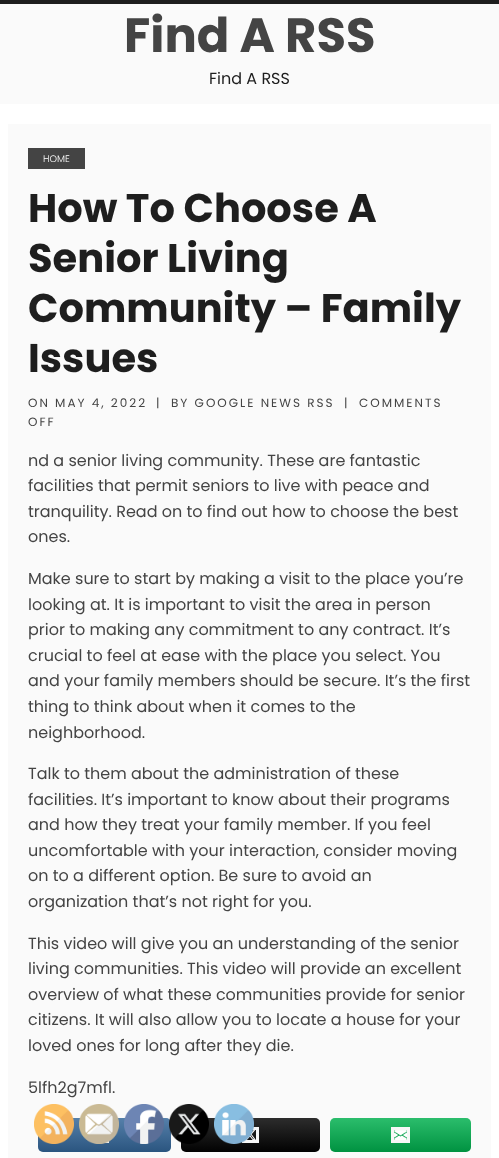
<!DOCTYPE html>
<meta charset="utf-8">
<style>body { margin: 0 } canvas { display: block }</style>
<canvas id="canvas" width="499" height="1158"></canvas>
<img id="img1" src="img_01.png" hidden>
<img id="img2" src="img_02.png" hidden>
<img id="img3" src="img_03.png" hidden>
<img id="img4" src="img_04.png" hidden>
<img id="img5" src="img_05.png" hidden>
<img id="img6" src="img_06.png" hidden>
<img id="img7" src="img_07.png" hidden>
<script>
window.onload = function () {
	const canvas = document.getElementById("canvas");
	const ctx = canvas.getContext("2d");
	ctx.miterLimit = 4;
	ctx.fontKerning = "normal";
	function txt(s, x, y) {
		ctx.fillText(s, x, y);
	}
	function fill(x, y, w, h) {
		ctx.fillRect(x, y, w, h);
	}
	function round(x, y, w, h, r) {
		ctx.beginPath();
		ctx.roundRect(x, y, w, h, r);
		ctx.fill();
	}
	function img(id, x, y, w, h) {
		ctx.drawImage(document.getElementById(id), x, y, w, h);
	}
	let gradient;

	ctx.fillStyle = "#FFFFFF";
	fill(0, 0, 499, 1158);
	ctx.fillStyle = "#1E1E1E";
	fill(0, 0, 499, 4);
	ctx.fillStyle = "#FAFAFA";
	fill(0, 4, 499, 100);
	fill(8, 124, 483, 1034);
	ctx.fillStyle = "#444444";
	fill(28, 148, 57, 21);
	ctx.fillStyle = "#336699";
	round(38, 1118, 133, 34, 5);
	gradient = ctx.createLinearGradient(105, 1152, 105, 1118);
	gradient.addColorStop(0, "rgba(0, 0, 0, 0.17)");
	gradient.addColorStop(1, "rgba(255, 255, 255, 0.17)");
	ctx.fillStyle = gradient;
	round(38, 1118, 133, 34, 5);
	ctx.strokeStyle = "#F7F7F7";
	ctx.lineWidth = 3;
	ctx.strokeRect(100.5, 1128.5, 7, 13);
	ctx.fillStyle = "#020202";
	round(181, 1118, 139, 34, 5);
	gradient = ctx.createLinearGradient(251, 1152, 251, 1118);
	gradient.addColorStop(0, "rgba(0, 0, 0, 0.17)");
	gradient.addColorStop(1, "rgba(255, 255, 255, 0.17)");
	ctx.fillStyle = gradient;
	round(181, 1118, 139, 34, 5);
	ctx.strokeRect(243.5, 1128.5, 14, 13);
	img("img1", 246, 1130, 10, 10);
	ctx.fillStyle = "#00B04E";
	round(330, 1118, 141, 34, 5);
	gradient = ctx.createLinearGradient(401, 1152, 401, 1118);
	gradient.addColorStop(0, "rgba(0, 0, 0, 0.17)");
	gradient.addColorStop(1, "rgba(255, 255, 255, 0.17)");
	ctx.fillStyle = gradient;
	round(330, 1118, 141, 34, 5);
	ctx.strokeRect(392.5, 1128.5, 16, 13);
	img("img2", 394, 1130, 13, 10);
	img("img3", 34, 1104, 40, 40);
	img("img4", 79, 1104, 40, 40);
	img("img5", 124, 1104, 40, 40);
	img("img6", 169, 1104, 40, 40);
	img("img7", 214, 1104, 40, 40);
	ctx.font = "bold 48px Poppins";
	ctx.fillStyle = "#444444";
	txt("Find A RSS", 124, 52);
	ctx.font = "16px Poppins";
	ctx.fillStyle = "#1E1E1E";
	txt("Find A RSS", 209, 84);
	ctx.font = "300 9.5px Poppins";
	ctx.fillStyle = "#FFFFFF";
	txt("HOME", 43, 162);
	ctx.font = "bold 40px Poppins";
	ctx.fillStyle = "#1E1E1E";
	txt("How To Choose A", 28, 222);
	txt("Senior Living", 28, 272);
	txt("Community – Family", 28, 322);
	txt("Issues", 28, 372);
	ctx.letterSpacing = "2px";
	ctx.font = "12px Poppins";
	ctx.fillStyle = "#444444";
	txt("ON MAY 4, 2022", 28, 407);
	txt("|", 156, 407);
	txt("BY GOOGLE NEWS RSS", 171, 407);
	txt("|", 344, 407);
	txt("COMMENTS", 359, 407);
	txt("OFF", 28, 426);
	ctx.letterSpacing = "0px";
	ctx.font = "16px Poppins";
	txt("nd a senior living community. These are fantastic", 28, 466);
	txt("facilities that permit seniors to live with peace and", 28, 491);
	txt("tranquility. Read on to find out how to choose the best", 28, 517);
	txt("ones.", 28, 542);
	txt("Make sure to start by making a visit to the place you’re", 28, 584);
	txt("looking at. It is important to visit the area in person", 28, 610);
	txt("prior to making any commitment to any contract. It’s", 28, 635);
	txt("crucial to feel at ease with the place you select. You", 28, 661);
	txt("and your family members should be secure. It’s the first", 28, 686);
	txt("thing to think about when it comes to the", 28, 712);
	txt("neighborhood.", 28, 738);
	txt("Talk to them about the administration of these", 28, 779);
	txt("facilities. It’s important to know about their programs", 28, 805);
	txt("and how they treat your family member. If you feel", 28, 830);
	txt("uncomfortable with your interaction, consider moving", 28, 856);
	txt("on to a different option. Be sure to avoid an", 28, 881);
	txt("organization that’s not right for you.", 28, 907);
	txt("This video will give you an understanding of the senior", 28, 949);
	txt("living communities. This video will provide an excellent", 28, 974);
	txt("overview of what these communities provide for senior", 28, 1000);
	txt("citizens. It will also allow you to locate a house for your", 28, 1025);
	txt("loved ones for long after they die.", 28, 1051);
	txt("5lfh2g7mfl.", 28, 1093);
};
</script>
